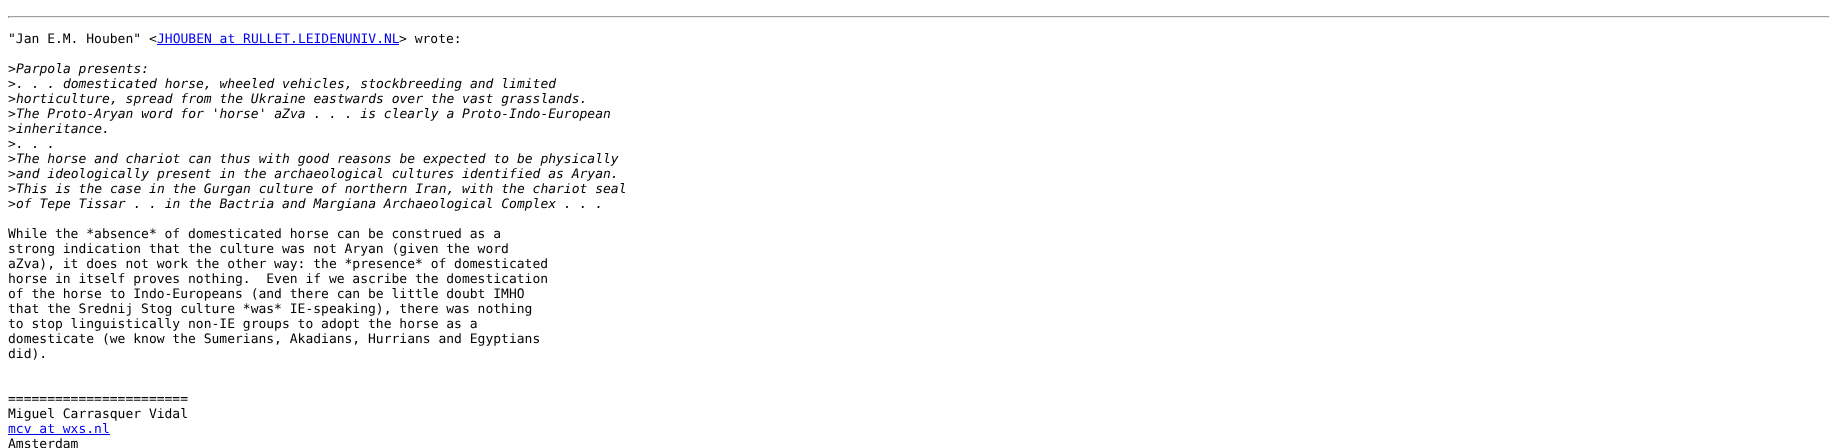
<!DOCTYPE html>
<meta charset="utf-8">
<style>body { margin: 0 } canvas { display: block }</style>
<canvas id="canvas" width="1838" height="448"></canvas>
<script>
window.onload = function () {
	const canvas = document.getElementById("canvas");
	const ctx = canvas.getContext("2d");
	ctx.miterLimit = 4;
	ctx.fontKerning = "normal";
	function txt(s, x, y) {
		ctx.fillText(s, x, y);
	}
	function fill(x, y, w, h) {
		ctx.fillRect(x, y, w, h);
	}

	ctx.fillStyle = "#FFFFFF";
	fill(0, 0, 1838, 448);
	ctx.fillStyle = "#9F9F9F";
	fill(8, 16, 1822, 1);
	ctx.fillStyle = "#EEEEEE";
	fill(1829, 16, 1, 2);
	fill(8, 17, 1822, 1);
	ctx.fillStyle = "#9F9F9F";
	fill(8, 16, 1, 2);
	ctx.fillStyle = "#0000EE";
	fill(157, 44, 242, 1);
	fill(8, 434, 102, 1);
	ctx.font = "13px DejaVu Sans Mono";
	ctx.fillStyle = "#000000";
	txt("\"Jan E.M. Houben\" <", 8, 43);
	ctx.fillStyle = "#0000EE";
	txt("JHOUBEN at RULLET.LEIDENUNIV.NL", 157, 43);
	ctx.fillStyle = "#000000";
	txt("> wrote:", 399, 43);
	txt(">", 8, 73);
	ctx.font = "italic 13px DejaVu Sans Mono";
	txt("Parpola presents:", 16, 73);
	ctx.font = "13px DejaVu Sans Mono";
	txt(">", 8, 88);
	ctx.font = "italic 13px DejaVu Sans Mono";
	txt(". . . domesticated horse, wheeled vehicles, stockbreeding and limited", 16, 88);
	ctx.font = "13px DejaVu Sans Mono";
	txt(">", 8, 103);
	ctx.font = "italic 13px DejaVu Sans Mono";
	txt("horticulture, spread from the Ukraine eastwards over the vast grasslands.", 16, 103);
	ctx.font = "13px DejaVu Sans Mono";
	txt(">", 8, 118);
	ctx.font = "italic 13px DejaVu Sans Mono";
	txt("The Proto-Aryan word for 'horse' aZva . . . is clearly a Proto-Indo-European", 16, 118);
	ctx.font = "13px DejaVu Sans Mono";
	txt(">", 8, 133);
	ctx.font = "italic 13px DejaVu Sans Mono";
	txt("inheritance.", 16, 133);
	ctx.font = "13px DejaVu Sans Mono";
	txt(">", 8, 148);
	ctx.font = "italic 13px DejaVu Sans Mono";
	txt(". . .", 16, 148);
	ctx.font = "13px DejaVu Sans Mono";
	txt(">", 8, 163);
	ctx.font = "italic 13px DejaVu Sans Mono";
	txt("The horse and chariot can thus with good reasons be expected to be physically", 16, 163);
	ctx.font = "13px DejaVu Sans Mono";
	txt(">", 8, 178);
	ctx.font = "italic 13px DejaVu Sans Mono";
	txt("and ideologically present in the archaeological cultures identified as Aryan.", 16, 178);
	ctx.font = "13px DejaVu Sans Mono";
	txt(">", 8, 193);
	ctx.font = "italic 13px DejaVu Sans Mono";
	txt("This is the case in the Gurgan culture of northern Iran, with the chariot seal", 16, 193);
	ctx.font = "13px DejaVu Sans Mono";
	txt(">", 8, 208);
	ctx.font = "italic 13px DejaVu Sans Mono";
	txt("of Tepe Tissar . . in the Bactria and Margiana Archaeological Complex . . .", 16, 208);
	ctx.font = "13px DejaVu Sans Mono";
	txt("While the *absence* of domesticated horse can be construed as a", 8, 238);
	txt("strong indication that the culture was not Aryan (given the word", 8, 253);
	txt("aZva), it does not work the other way: the *presence* of domesticated", 8, 268);
	txt("horse in itself proves nothing.  Even if we ascribe the domestication", 8, 283);
	txt("of the horse to Indo-Europeans (and there can be little doubt IMHO", 8, 298);
	txt("that the Srednij Stog culture *was* IE-speaking), there was nothing", 8, 313);
	txt("to stop linguistically non-IE groups to adopt the horse as a", 8, 328);
	txt("domesticate (we know the Sumerians, Akadians, Hurrians and Egyptians", 8, 343);
	txt("did).", 8, 358);
	txt("=======================", 8, 403);
	txt("Miguel Carrasquer Vidal", 8, 418);
	ctx.fillStyle = "#0000EE";
	txt("mcv at wxs.nl", 8, 433);
	ctx.fillStyle = "#000000";
	txt("Amsterdam", 8, 448);
};
</script>
